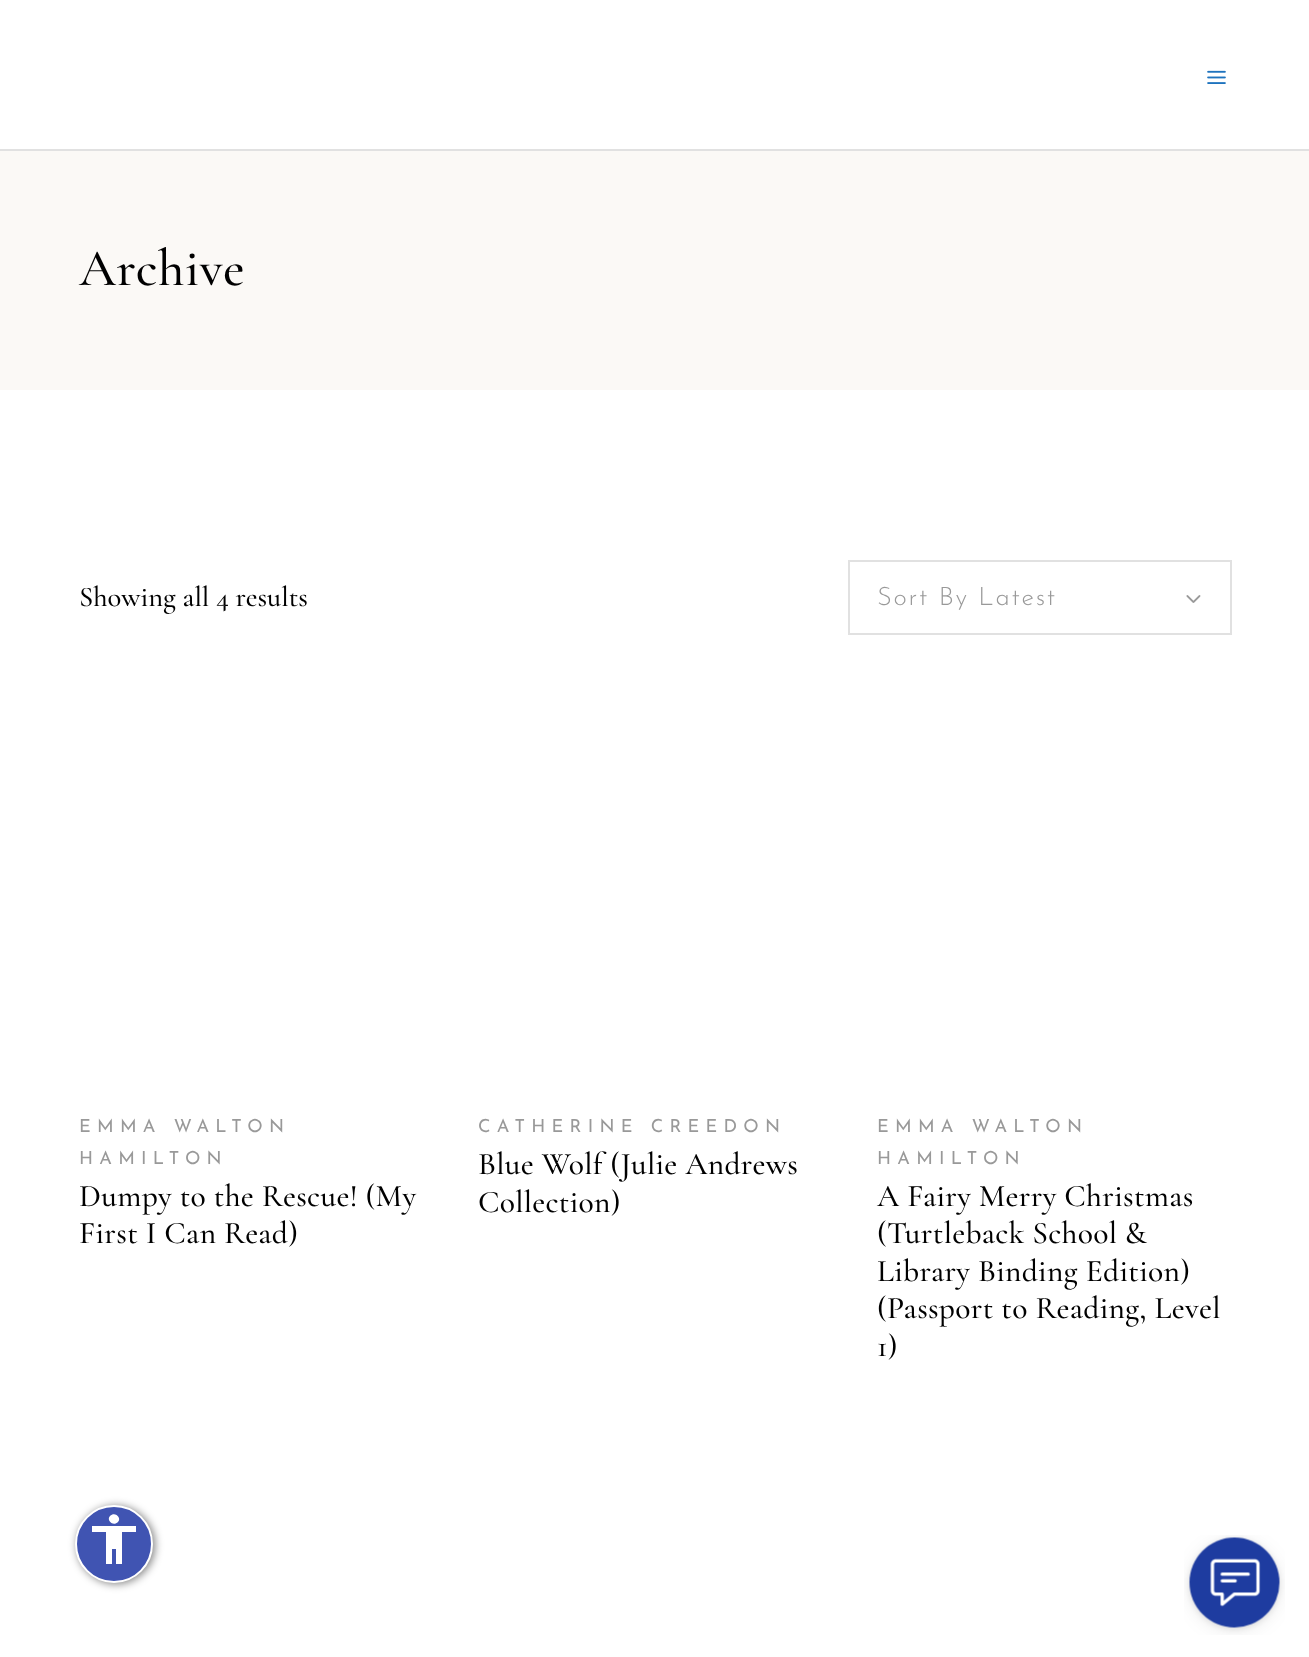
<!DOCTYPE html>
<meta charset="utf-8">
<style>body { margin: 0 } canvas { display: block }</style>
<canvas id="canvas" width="1309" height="1657"></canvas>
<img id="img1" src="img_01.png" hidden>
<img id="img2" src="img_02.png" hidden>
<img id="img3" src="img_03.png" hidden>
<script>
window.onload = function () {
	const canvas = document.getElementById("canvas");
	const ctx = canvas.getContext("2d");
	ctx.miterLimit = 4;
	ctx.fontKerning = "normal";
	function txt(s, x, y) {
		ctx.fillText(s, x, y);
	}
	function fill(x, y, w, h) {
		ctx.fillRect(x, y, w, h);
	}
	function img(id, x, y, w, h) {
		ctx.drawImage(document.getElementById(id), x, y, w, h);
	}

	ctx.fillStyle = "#FFFFFF";
	fill(0, 0, 1309, 1657);
	ctx.fillStyle = "#E1E1E1";
	fill(0, 149, 1309, 2);
	img("img1", 1207, 70, 19, 14);
	ctx.fillStyle = "#FBF9F6";
	fill(0, 151, 1309, 239);
	ctx.strokeStyle = "#E1E1E1";
	ctx.lineWidth = 2;
	ctx.strokeRect(849, 561, 382, 73);
	img("img2", 1186, 595, 15, 8);
	ctx.fillStyle = "rgba(0, 0, 0, 0.5)";
	ctx.filter = "blur(4px)";
	ctx.beginPath();
	ctx.roundRect(77, 1506, 78, 78, 39);
	ctx.fill();
	ctx.filter = "none";
	ctx.fillStyle = "#4054B2";
	ctx.beginPath();
	ctx.arc(114, 1544, 38, 0, Math.PI * 2);
	ctx.fill();
	ctx.strokeStyle = "#FFFFFF";
	ctx.stroke();
	ctx.fillStyle = "#FFFFFF";
	ctx.beginPath();
	ctx.moveTo(136, 1532);
	ctx.lineTo(122, 1532);
	ctx.lineTo(122, 1564);
	ctx.lineTo(116, 1564);
	ctx.lineTo(116, 1549);
	ctx.lineTo(112, 1549);
	ctx.lineTo(112, 1564);
	ctx.lineTo(106, 1564);
	ctx.lineTo(106, 1532);
	ctx.lineTo(92, 1532);
	ctx.lineTo(92, 1526);
	ctx.lineTo(136, 1526);
	ctx.closePath();
	ctx.moveTo(110, 1516);
	ctx.bezierCurveTo(115, 1511, 122, 1518, 118, 1522);
	ctx.bezierCurveTo(113, 1527, 106, 1520, 110, 1516);
	ctx.closePath();
	ctx.fill();
	img("img3", 1184, 1535, 101, 100);
	ctx.letterSpacing = "0.5px";
	ctx.font = "500 52.5px Cormorant Garamond";
	ctx.fillStyle = "#000000";
	txt("Archive", 79, 285);
	ctx.letterSpacing = "0px";
	ctx.font = "500 28.5px Cormorant Garamond";
	txt("Showing all 4 results", 79, 606);
	ctx.letterSpacing = "1.75px";
	ctx.font = "300 25.5px Josefin Sans";
	ctx.fillStyle = "#999999";
	txt("Sort By Latest", 877, 605);
	ctx.letterSpacing = "6.25px";
	ctx.font = "18px Josefin Sans";
	txt("EMMA WALTON", 79, 1132);
	txt("HAMILTON", 79, 1164);
	ctx.letterSpacing = "0.3px";
	ctx.font = "500 31.5px Cormorant Garamond";
	ctx.fillStyle = "#000000";
	txt("Dumpy to the Rescue! (My", 79, 1206);
	txt("First I Can Read)", 79, 1243);
	ctx.letterSpacing = "6.25px";
	ctx.font = "18px Josefin Sans";
	ctx.fillStyle = "#999999";
	txt("CATHERINE CREEDON", 478, 1132);
	ctx.letterSpacing = "0.3px";
	ctx.font = "500 31.5px Cormorant Garamond";
	ctx.fillStyle = "#000000";
	txt("Blue Wolf (Julie Andrews", 478, 1174);
	txt("Collection)", 478, 1212);
	ctx.letterSpacing = "6.25px";
	ctx.font = "18px Josefin Sans";
	ctx.fillStyle = "#999999";
	txt("EMMA WALTON", 877, 1132);
	txt("HAMILTON", 877, 1164);
	ctx.letterSpacing = "0.3px";
	ctx.font = "500 31.5px Cormorant Garamond";
	ctx.fillStyle = "#000000";
	txt("A Fairy Merry Christmas", 877, 1206);
	txt("(Turtleback School &", 877, 1243);
	txt("Library Binding Edition)", 877, 1281);
	txt("(Passport to Reading, Level", 877, 1318);
	txt("1)", 877, 1356);
};
</script>
